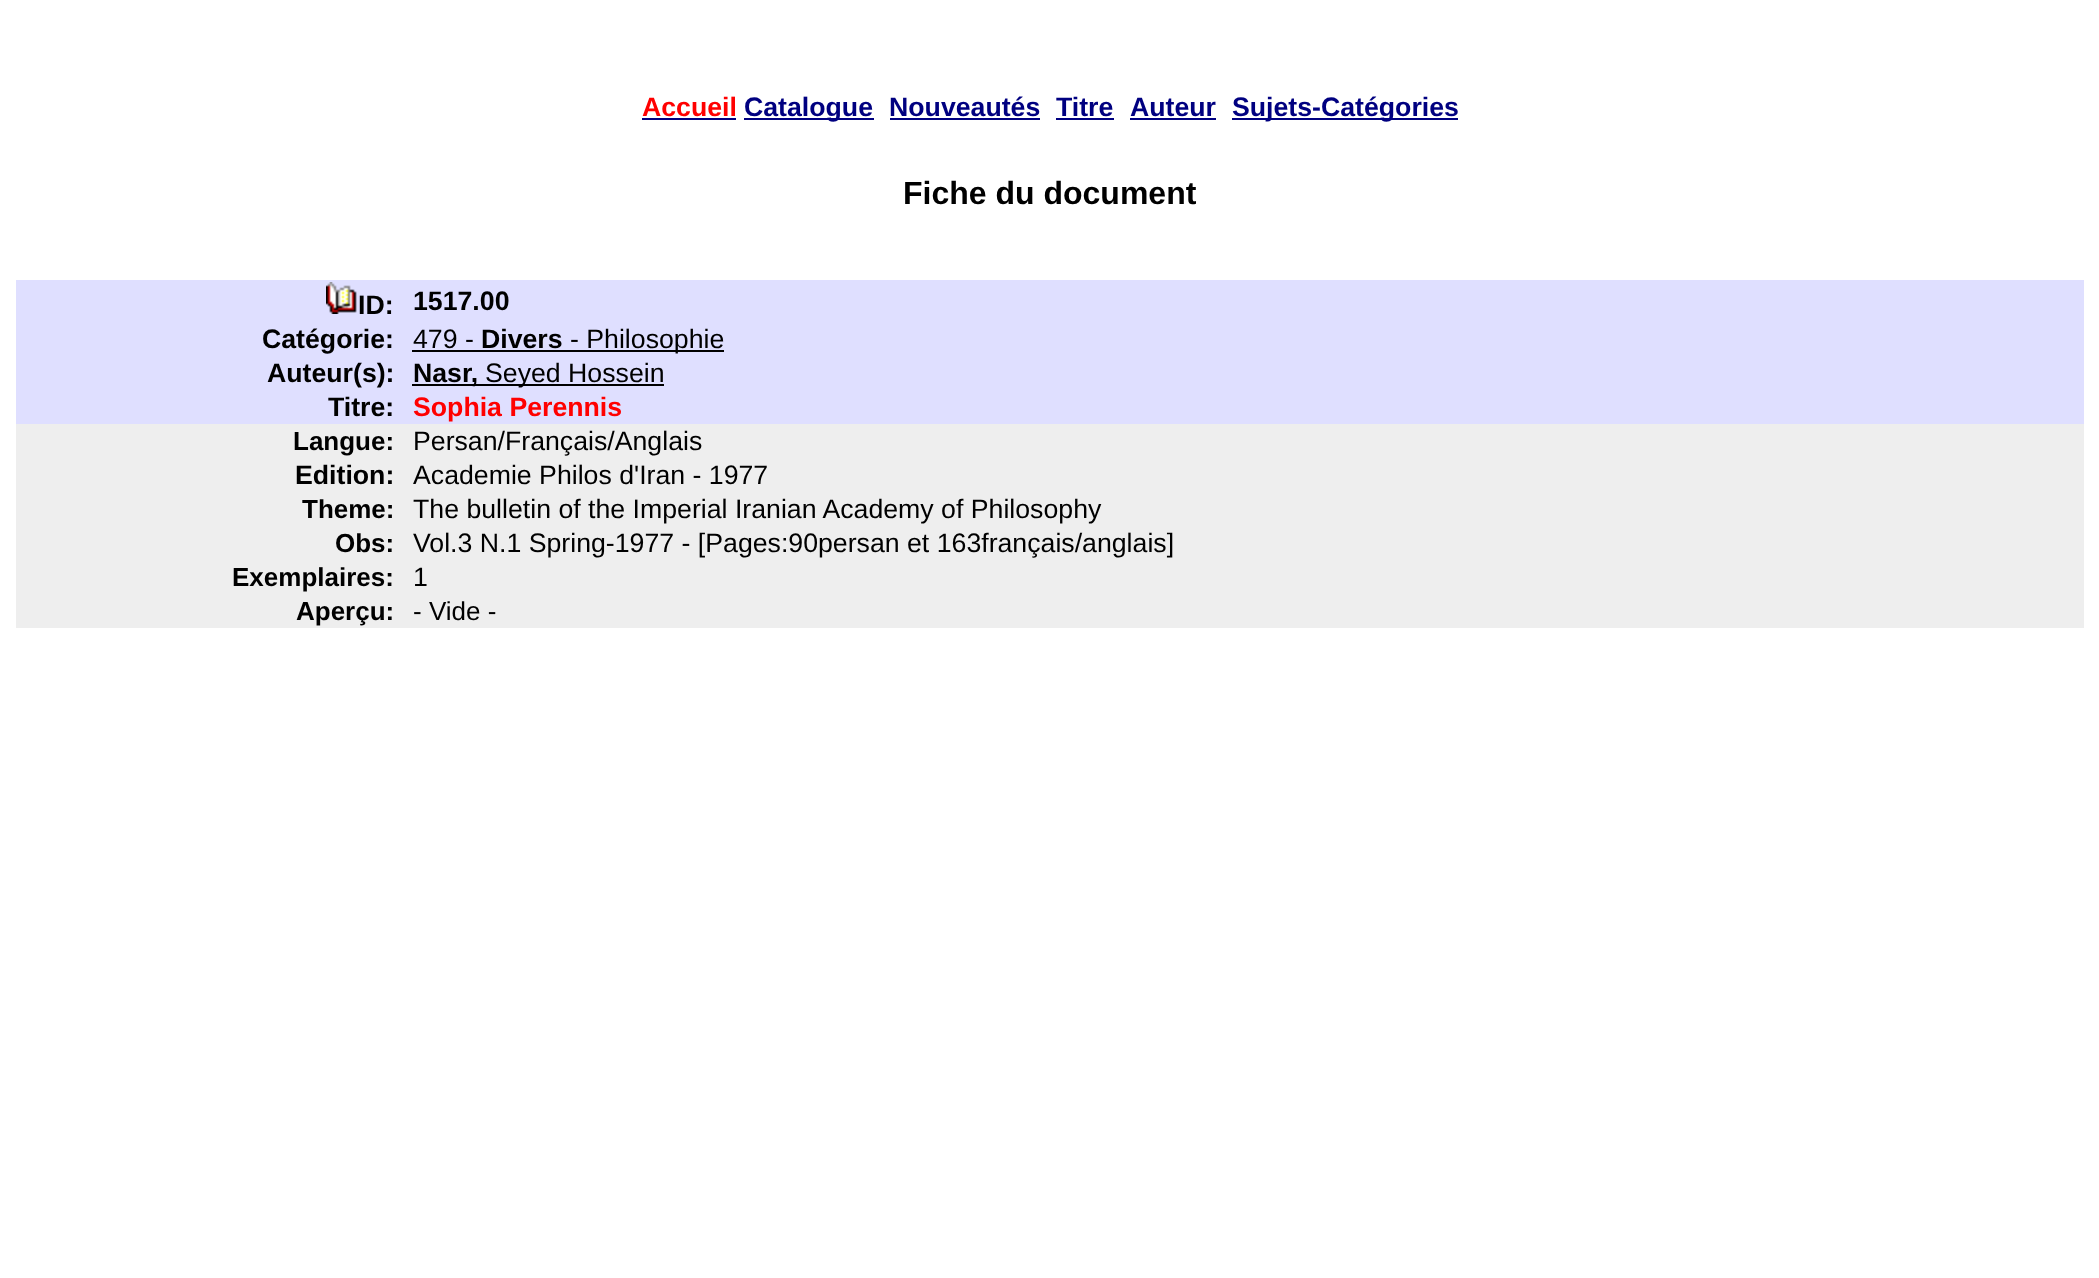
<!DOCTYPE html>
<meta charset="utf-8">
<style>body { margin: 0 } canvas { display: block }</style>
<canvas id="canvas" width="2099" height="1278"></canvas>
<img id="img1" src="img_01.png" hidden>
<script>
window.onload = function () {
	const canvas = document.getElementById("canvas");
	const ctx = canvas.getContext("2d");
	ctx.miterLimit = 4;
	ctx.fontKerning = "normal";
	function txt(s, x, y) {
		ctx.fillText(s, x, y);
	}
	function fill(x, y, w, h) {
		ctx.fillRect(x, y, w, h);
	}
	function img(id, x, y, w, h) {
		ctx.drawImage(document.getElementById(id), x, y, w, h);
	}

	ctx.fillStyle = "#FFFFFF";
	fill(0, 0, 2099, 1278);
	ctx.fillStyle = "#000080";
	fill(642, 118, 94, 2);
	fill(744, 118, 130, 2);
	fill(890, 118, 150, 2);
	fill(1056, 118, 58, 2);
	fill(1130, 118, 86, 2);
	fill(1232, 118, 226, 2);
	ctx.fillStyle = "#DFDFFF";
	fill(16, 280, 2068, 144);
	img("img1", 326, 282, 31, 32);
	ctx.fillStyle = "#000000";
	fill(412, 350, 312, 2);
	fill(412, 384, 252, 2);
	ctx.fillStyle = "#EEEEEE";
	fill(16, 424, 2068, 204);
	ctx.font = "bold 26.7px Liberation Sans";
	ctx.fillStyle = "#FF0000";
	txt("Accueil", 642, 116);
	ctx.fillStyle = "#000080";
	txt("Catalogue", 744, 116);
	txt("Nouveautés", 889, 116);
	txt("Titre", 1056, 116);
	txt("Auteur", 1130, 116);
	txt("Sujets-Catégories", 1232, 116);
	ctx.font = "bold 32px Liberation Sans";
	ctx.fillStyle = "#000000";
	txt("Fiche du document", 903, 204);
	ctx.font = "bold 26.7px Liberation Sans";
	txt("ID:", 358, 314);
	txt("1517.00", 413, 310);
	txt("Catégorie:", 262, 348);
	ctx.font = "26.7px Liberation Sans";
	txt("479 -", 413, 348);
	ctx.font = "bold 26.7px Liberation Sans";
	txt("Divers", 481, 348);
	ctx.font = "26.7px Liberation Sans";
	txt("- Philosophie", 570, 348);
	ctx.font = "bold 26.7px Liberation Sans";
	txt("Auteur(s):", 267, 382);
	txt("Nasr,", 413, 382);
	ctx.font = "26.7px Liberation Sans";
	txt("Seyed Hossein", 485, 382);
	ctx.font = "bold 26.7px Liberation Sans";
	txt("Titre:", 328, 416);
	ctx.fillStyle = "#FF0000";
	txt("Sophia Perennis", 413, 416);
	ctx.font = "bold 26px Liberation Sans";
	ctx.fillStyle = "#000000";
	txt("Langue:", 293, 450);
	ctx.font = "26.7px Liberation Sans";
	txt("Persan/Français/Anglais", 413, 450);
	ctx.font = "bold 26.7px Liberation Sans";
	txt("Edition:", 295, 484);
	ctx.font = "26.7px Liberation Sans";
	txt("Academie Philos d'Iran - 1977", 413, 484);
	ctx.font = "bold 26px Liberation Sans";
	txt("Theme:", 302, 518);
	ctx.font = "26.7px Liberation Sans";
	txt("The bulletin of the Imperial Iranian Academy of Philosophy", 413, 518);
	ctx.font = "bold 26px Liberation Sans";
	txt("Obs:", 335, 552);
	ctx.font = "26.7px Liberation Sans";
	txt("Vol.3 N.1 Spring-1977 - [Pages:90persan et 163français/anglais]", 413, 552);
	ctx.font = "bold 26px Liberation Sans";
	txt("Exemplaires:", 232, 586);
	ctx.font = "26.7px Liberation Sans";
	txt("1", 413, 586);
	ctx.font = "bold 26px Liberation Sans";
	txt("Aperçu:", 296, 620);
	ctx.font = "26px Liberation Sans";
	txt("- Vide -", 413, 620);
};
</script>
